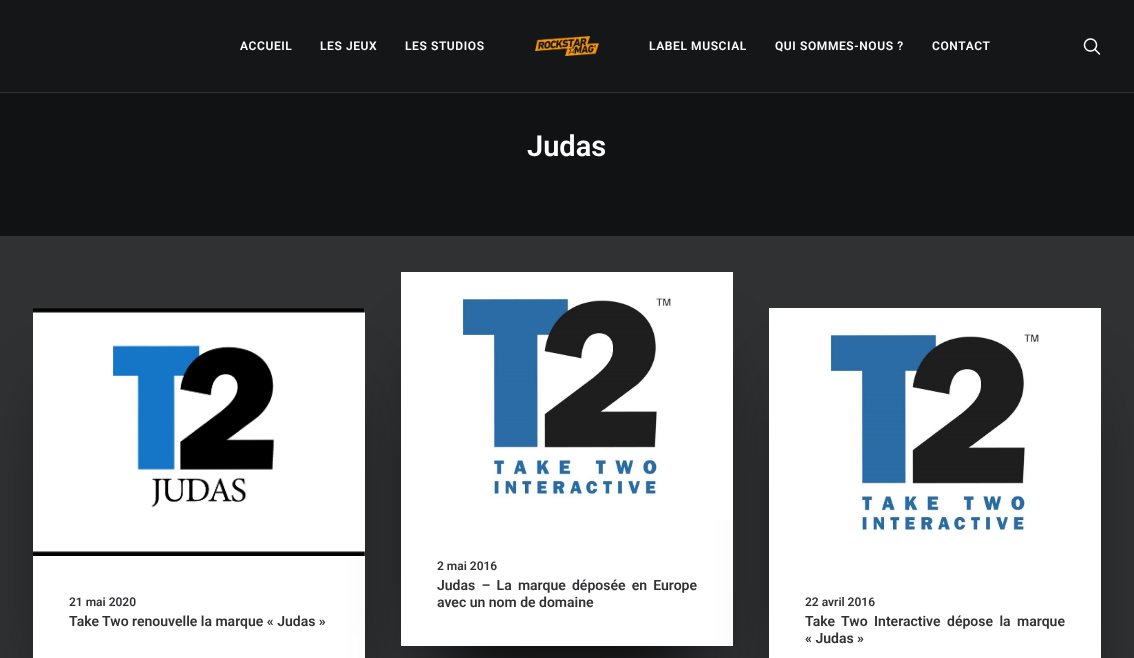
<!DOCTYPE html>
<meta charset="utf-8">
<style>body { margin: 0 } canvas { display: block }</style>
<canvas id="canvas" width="1134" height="658"></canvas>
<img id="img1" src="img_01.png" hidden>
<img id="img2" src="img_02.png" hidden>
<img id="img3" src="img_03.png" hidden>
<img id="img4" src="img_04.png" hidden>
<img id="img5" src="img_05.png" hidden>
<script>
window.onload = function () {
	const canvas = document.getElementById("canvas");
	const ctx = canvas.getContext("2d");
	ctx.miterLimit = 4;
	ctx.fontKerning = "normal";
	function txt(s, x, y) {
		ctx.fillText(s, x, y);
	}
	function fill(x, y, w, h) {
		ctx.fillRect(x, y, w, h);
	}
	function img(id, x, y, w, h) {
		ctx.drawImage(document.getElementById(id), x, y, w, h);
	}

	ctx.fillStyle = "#101213";
	fill(0, 0, 1134, 658);
	ctx.fillStyle = "#141618";
	fill(0, 0, 1134, 92);
	ctx.fillStyle = "#303133";
	fill(0, 92, 1134, 1);
	img("img1", 535, 36, 64, 20);
	img("img2", 1083, 38, 18, 17);
	fill(0, 236, 1134, 422);
	ctx.fillStyle = "#000000";
	ctx.filter = "blur(40px)";
	ctx.beginPath();
	ctx.rect(73, 403, 252, 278);
	ctx.fill();
	ctx.filter = "none";
	ctx.fillStyle = "#FFFFFF";
	fill(33, 308, 332, 350);
	ctx.fillStyle = "#000000";
	ctx.filter = "blur(40px)";
	ctx.beginPath();
	ctx.rect(441, 367, 252, 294);
	ctx.fill();
	ctx.filter = "none";
	ctx.fillStyle = "#FFFFFF";
	fill(401, 272, 332, 374);
	ctx.fillStyle = "#000000";
	ctx.filter = "blur(40px)";
	ctx.beginPath();
	ctx.rect(809, 403, 252, 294);
	ctx.fill();
	ctx.filter = "none";
	img("img3", 462, 295, 271, 225);
	img("img4", 33, 308, 332, 248);
	ctx.fillStyle = "#FFFFFF";
	fill(769, 308, 332, 350);
	img("img5", 830, 331, 209, 203);
	ctx.letterSpacing = "0.6px";
	ctx.font = "600 12px Roboto";
	txt("ACCUEIL", 240, 50);
	txt("LES JEUX", 320, 50);
	txt("LES STUDIOS", 405, 50);
	txt("LABEL MUSCIAL", 649, 50);
	txt("QUI SOMMES-NOUS ?", 775, 50);
	txt("CONTACT", 932, 50);
	ctx.letterSpacing = "0px";
	ctx.font = "600 29px Roboto";
	txt("Judas", 527, 156);
	ctx.font = "600 12px Roboto";
	ctx.fillStyle = "#303133";
	txt("2 mai 2016", 437, 570);
	ctx.wordSpacing = "2.75px";
	ctx.font = "600 14px Roboto";
	txt("Judas – La marque déposée en Europe", 437, 590);
	ctx.wordSpacing = "0px";
	txt("avec un nom de domaine", 437, 607);
	ctx.font = "600 12px Roboto";
	txt("21 mai 2020", 69, 606);
	ctx.font = "600 14px Roboto";
	txt("Take Two renouvelle la marque « Judas »", 69, 626);
	ctx.font = "600 12px Roboto";
	txt("22 avril 2016", 805, 606);
	ctx.wordSpacing = "3px";
	ctx.font = "600 14px Roboto";
	txt("Take Two Interactive dépose la marque", 805, 626);
	ctx.wordSpacing = "0px";
	txt("« Judas »", 805, 643);
};
</script>
